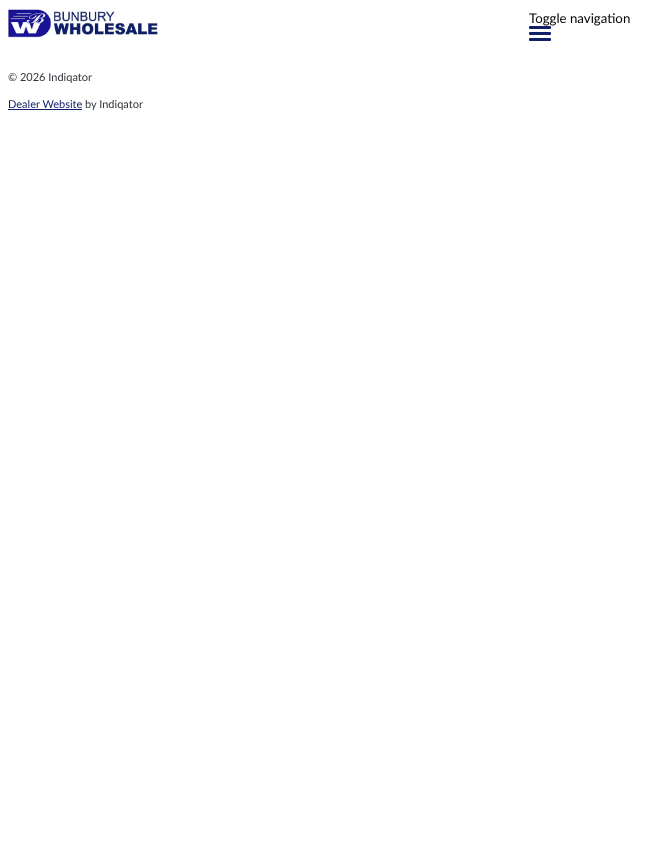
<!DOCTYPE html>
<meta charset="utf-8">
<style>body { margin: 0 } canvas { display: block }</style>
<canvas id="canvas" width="645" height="846"></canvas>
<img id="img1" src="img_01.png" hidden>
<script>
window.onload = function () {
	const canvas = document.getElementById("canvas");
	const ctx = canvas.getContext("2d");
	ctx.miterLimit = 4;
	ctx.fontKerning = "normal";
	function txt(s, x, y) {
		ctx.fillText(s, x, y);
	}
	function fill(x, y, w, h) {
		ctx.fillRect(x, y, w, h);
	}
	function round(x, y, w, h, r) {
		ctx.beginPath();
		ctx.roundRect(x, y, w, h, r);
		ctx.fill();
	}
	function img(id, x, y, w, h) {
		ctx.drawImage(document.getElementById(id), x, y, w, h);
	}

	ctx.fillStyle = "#FFFFFF";
	fill(0, 0, 645, 846);
	img("img1", 8, 8, 150, 30);
	ctx.fillStyle = "#0F1F68";
	round(529, 26, 22, 3, 1);
	round(529, 32, 22, 3, 1);
	round(529, 38, 22, 3, 1);
	fill(8, 109, 74, 1);
	ctx.font = "13.25px Lato";
	ctx.fillStyle = "#000000";
	txt("Toggle navigation", 529, 23);
	ctx.font = "11px Lato";
	ctx.fillStyle = "#30343A";
	txt("© 2026 Indiqator", 8, 81);
	ctx.fillStyle = "#0F1F68";
	txt("Dealer Website", 8, 108);
	ctx.fillStyle = "#30343A";
	txt("by Indiqator", 85, 108);
};
</script>
